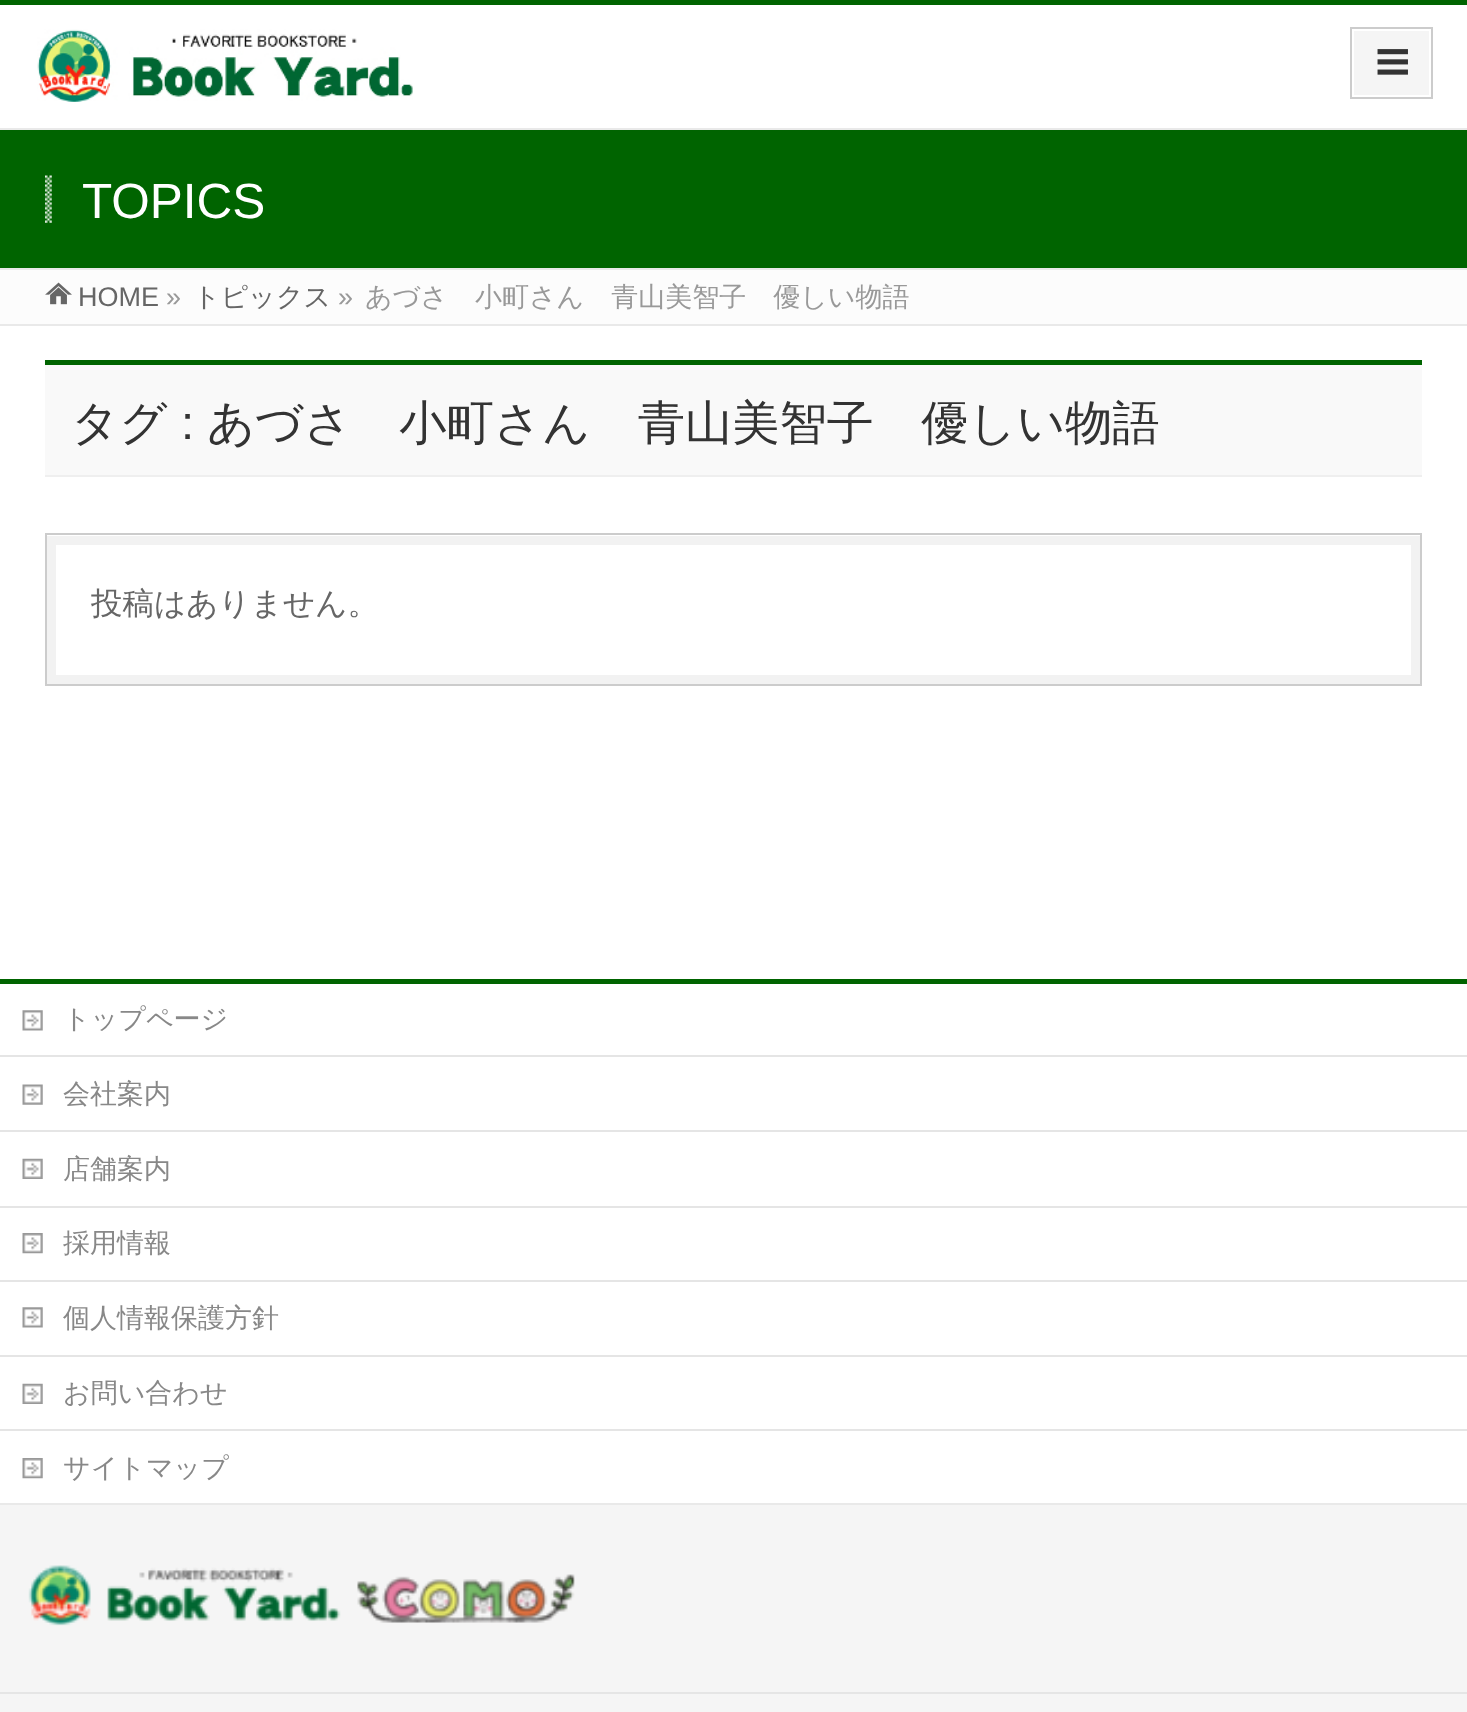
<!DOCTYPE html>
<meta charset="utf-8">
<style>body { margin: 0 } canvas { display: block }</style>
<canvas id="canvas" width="1467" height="1712"></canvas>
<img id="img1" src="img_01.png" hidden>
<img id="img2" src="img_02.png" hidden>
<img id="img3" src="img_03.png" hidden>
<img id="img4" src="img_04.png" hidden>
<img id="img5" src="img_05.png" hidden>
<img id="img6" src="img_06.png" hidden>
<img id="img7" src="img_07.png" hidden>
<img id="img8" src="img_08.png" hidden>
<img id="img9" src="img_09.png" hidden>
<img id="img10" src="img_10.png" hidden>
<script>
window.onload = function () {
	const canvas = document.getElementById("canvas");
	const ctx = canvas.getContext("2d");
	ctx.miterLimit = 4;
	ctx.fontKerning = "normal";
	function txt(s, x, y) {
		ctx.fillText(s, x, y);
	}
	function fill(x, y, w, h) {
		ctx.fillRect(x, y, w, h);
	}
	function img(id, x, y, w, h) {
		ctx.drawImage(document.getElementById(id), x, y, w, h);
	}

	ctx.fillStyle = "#FFFFFF";
	fill(0, 0, 1467, 1712);
	ctx.fillStyle = "#006400";
	fill(0, 0, 1467, 5);
	img("img1", 37, 29, 376, 73);
	ctx.fillStyle = "#F5F5F5";
	fill(1354, 31, 75, 64);
	ctx.strokeStyle = "#CCCCCC";
	ctx.lineWidth = 2;
	ctx.strokeRect(1351, 28, 81, 70);
	img("img2", 1377, 49, 31, 26);
	ctx.fillStyle = "#006400";
	fill(0, 130, 1467, 138);
	ctx.fillStyle = "#E9E9E9";
	fill(0, 128, 1467, 2);
	fill(0, 268, 1467, 2);
	img("img3", 45, 175, 7, 48);
	ctx.fillStyle = "#FCFCFC";
	fill(0, 270, 1467, 54);
	img("img4", 45, 282, 27, 23);
	ctx.fillStyle = "#E9E9E9";
	fill(0, 324, 1467, 2);
	ctx.fillStyle = "#F9F9F9";
	fill(45, 365, 1377, 110);
	ctx.fillStyle = "#006400";
	fill(45, 360, 1377, 5);
	ctx.fillStyle = "#EFEFEF";
	fill(45, 475, 1377, 2);
	ctx.strokeStyle = "#F2F2F2";
	ctx.lineWidth = 9;
	ctx.strokeRect(51.5, 540.5, 1364, 139);
	ctx.strokeStyle = "#CCCCCC";
	ctx.lineWidth = 2;
	ctx.strokeRect(46, 534, 1375, 151);
	ctx.fillStyle = "#006400";
	fill(0, 979, 1467, 5);
	ctx.fillStyle = "#E9E9E9";
	fill(0, 1503, 1467, 2);
	ctx.fillStyle = "#E5E5E5";
	fill(0, 1055, 1467, 2);
	img("img5", 22, 1010, 21, 21);
	fill(0, 1130, 1467, 2);
	img("img6", 22, 1084, 21, 21);
	fill(0, 1206, 1467, 2);
	img("img7", 22, 1158, 21, 21);
	fill(0, 1280, 1467, 2);
	img("img8", 22, 1233, 21, 21);
	fill(0, 1355, 1467, 2);
	img("img5", 22, 1307, 21, 21);
	fill(0, 1429, 1467, 2);
	img("img9", 22, 1383, 21, 21);
	img("img8", 22, 1458, 21, 21);
	ctx.fillStyle = "#F5F5F5";
	fill(0, 1505, 1467, 187);
	img("img10", 28, 1565, 547, 61);
	fill(0, 1694, 1467, 18);
	ctx.fillStyle = "#E5E5E5";
	fill(0, 1692, 1467, 2);
	ctx.font = "49.5px Liberation Sans";
	ctx.fillStyle = "#FFFFFF";
	txt("TOPICS", 82, 218);
	ctx.font = "27px Liberation Sans";
	ctx.fillStyle = "#666666";
	txt("HOME", 78, 306);
	ctx.fillStyle = "#999999";
	txt("»", 166, 306);
	ctx.font = "500 27px WenQuanYi Zen Hei";
	ctx.fillStyle = "#666666";
	txt("トピックス", 193, 306);
	ctx.font = "27px Liberation Sans";
	ctx.fillStyle = "#999999";
	txt("»", 338, 306);
	ctx.font = "500 27px WenQuanYi Zen Hei";
	txt("あづさ　小町さん　青山美智子　優しい物語", 365, 306);
	ctx.font = "500 47.25px WenQuanYi Zen Hei";
	ctx.fillStyle = "#333333";
	txt("タグ", 71, 439);
	ctx.font = "47.25px Liberation Sans";
	txt(":", 181, 439);
	ctx.font = "500 47.25px WenQuanYi Zen Hei";
	txt("あづさ　小町さん　青山美智子　優しい物語", 207, 439);
	ctx.font = "500 31.5px WenQuanYi Zen Hei";
	ctx.fillStyle = "#666666";
	txt("投稿はありません。", 91, 614);
	ctx.font = "500 27px WenQuanYi Zen Hei";
	ctx.fillStyle = "#888888";
	txt("トップページ", 63, 1028);
	txt("会社案内", 63, 1103);
	txt("店舗案内", 63, 1178);
	txt("採用情報", 63, 1252);
	txt("個人情報保護方針", 63, 1327);
	txt("お問い合わせ", 63, 1402);
	txt("サイトマップ", 63, 1477);
};
</script>
